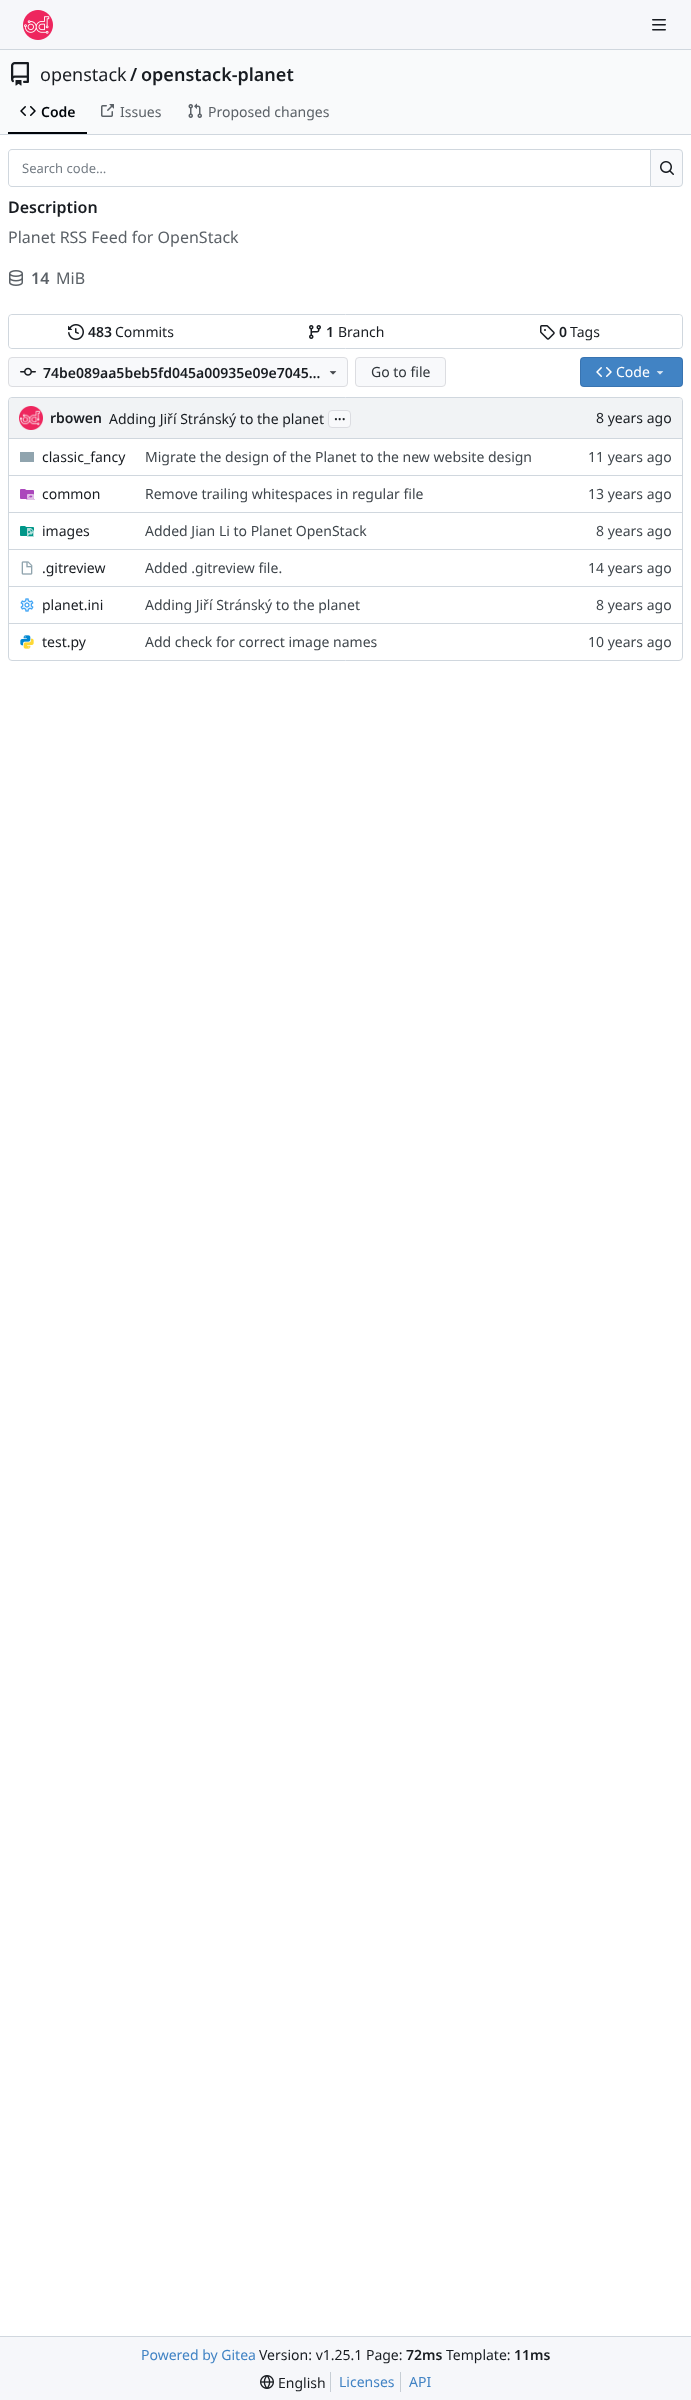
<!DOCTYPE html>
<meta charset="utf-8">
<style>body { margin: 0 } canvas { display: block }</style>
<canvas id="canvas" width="691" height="2400"></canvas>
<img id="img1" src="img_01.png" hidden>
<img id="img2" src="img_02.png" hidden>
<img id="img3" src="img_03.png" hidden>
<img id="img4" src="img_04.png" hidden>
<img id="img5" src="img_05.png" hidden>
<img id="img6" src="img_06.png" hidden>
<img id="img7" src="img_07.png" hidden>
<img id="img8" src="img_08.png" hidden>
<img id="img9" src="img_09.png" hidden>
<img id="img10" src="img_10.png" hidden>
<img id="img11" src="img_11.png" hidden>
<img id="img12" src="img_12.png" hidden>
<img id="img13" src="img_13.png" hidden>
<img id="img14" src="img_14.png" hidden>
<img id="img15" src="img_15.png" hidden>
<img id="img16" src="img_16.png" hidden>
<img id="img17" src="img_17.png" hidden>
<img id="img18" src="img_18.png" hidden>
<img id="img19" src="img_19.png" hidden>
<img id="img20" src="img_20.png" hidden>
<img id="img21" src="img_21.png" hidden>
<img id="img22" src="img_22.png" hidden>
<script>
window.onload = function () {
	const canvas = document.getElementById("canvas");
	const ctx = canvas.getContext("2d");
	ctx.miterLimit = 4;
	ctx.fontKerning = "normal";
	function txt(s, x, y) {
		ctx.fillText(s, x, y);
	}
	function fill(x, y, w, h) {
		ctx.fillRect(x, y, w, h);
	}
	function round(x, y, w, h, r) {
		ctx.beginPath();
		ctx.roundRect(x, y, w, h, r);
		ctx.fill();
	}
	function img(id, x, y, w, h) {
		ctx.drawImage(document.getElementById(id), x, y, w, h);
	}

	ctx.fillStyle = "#FFFFFF";
	fill(0, 0, 691, 2400);
	ctx.fillStyle = "#F6F7FA";
	fill(0, 0, 691, 49);
	ctx.fillStyle = "#D0D7DE";
	fill(0, 49, 691, 1);
	img("img1", 23, 10, 30, 30);
	img("img2", 652, 19, 14, 12);
	ctx.fillStyle = "#F9FAFB";
	fill(0, 50, 691, 84);
	img("img3", 11, 62, 18, 24);
	ctx.fillStyle = "#01050A";
	fill(8, 132, 79, 2);
	img("img4", 20, 106, 16, 10);
	img("img5", 101, 104, 13, 13);
	img("img6", 188, 103, 14, 15);
	ctx.fillStyle = "#D0D7DE";
	fill(0, 134, 691, 1);
	ctx.beginPath();
	ctx.moveTo(12, 149);
	ctx.lineTo(650, 149);
	ctx.lineTo(650, 187);
	ctx.lineTo(12, 187);
	ctx.bezierCurveTo(10, 187, 8, 185, 8, 183);
	ctx.lineTo(8, 153);
	ctx.bezierCurveTo(8, 151, 10, 149, 12, 149);
	ctx.closePath();
	ctx.moveTo(12, 150);
	ctx.lineTo(650, 150);
	ctx.lineTo(650, 186);
	ctx.lineTo(12, 186);
	ctx.bezierCurveTo(10, 186, 9, 185, 9, 183);
	ctx.lineTo(9, 153);
	ctx.bezierCurveTo(9, 151, 10, 150, 12, 150);
	ctx.closePath();
	ctx.fill("evenodd");
	ctx.fillStyle = "#F8F9FB";
	ctx.beginPath();
	ctx.roundRect(650.5, 149.5, 32, 37, [0, 3.5, 3.5, 0]);
	ctx.fill();
	ctx.strokeStyle = "#D0D7DE";
	ctx.stroke();
	img("img7", 660, 161, 14, 14);
	img("img8", 9, 270, 14, 16);
	ctx.beginPath();
	ctx.roundRect(8.5, 314.5, 674, 34, 3.5);
	ctx.stroke();
	ctx.fillStyle = "#FFFFFF";
	round(9, 315, 673, 33, 4);
	img("img9", 68, 324, 16, 16);
	img("img10", 309, 325, 12, 14);
	img("img11", 540, 325, 15, 15);
	ctx.fillStyle = "#F8F9FB";
	ctx.beginPath();
	ctx.roundRect(8.5, 357.5, 339, 29, 3.5);
	ctx.fill();
	ctx.strokeStyle = "#DCDDE1";
	ctx.stroke();
	img("img12", 20, 367, 16, 9);
	img("img13", 329, 371, 8, 4);
	ctx.beginPath();
	ctx.roundRect(355.5, 357.5, 90, 29, 3.5);
	ctx.fill();
	ctx.stroke();
	ctx.fillStyle = "#4183C4";
	round(580, 357, 103, 30, 4);
	ctx.beginPath();
	ctx.roundRect(580.5, 357.5, 102, 29, 3.5);
	ctx.strokeStyle = "rgba(0, 0, 23, 0.11)";
	ctx.stroke();
	img("img14", 596, 367, 16, 10);
	img("img15", 656, 371, 8, 4);
	ctx.beginPath();
	ctx.roundRect(8.5, 397.5, 674, 263, 3.5);
	ctx.strokeStyle = "#D0D7DE";
	ctx.stroke();
	ctx.fillStyle = "#F1F3F5";
	ctx.beginPath();
	ctx.roundRect(9, 398, 673, 40, [4, 4, 0, 0]);
	ctx.fill();
	img("img16", 19, 406, 24, 24);
	ctx.fillStyle = "#F8F9FB";
	ctx.beginPath();
	ctx.roundRect(328.5, 410.5, 22, 17, 3.5);
	ctx.fill();
	ctx.strokeStyle = "#DBDCE1";
	ctx.stroke();
	ctx.fillStyle = "#D0D7DE";
	fill(9, 438, 569, 1);
	ctx.fillStyle = "#90A4AE";
	fill(20, 452, 14, 10);
	ctx.fillStyle = "#D0D7DE";
	fill(578, 438, 104, 1);
	fill(9, 475, 569, 1);
	img("img17", 20, 489, 15, 11);
	fill(578, 475, 104, 1);
	fill(9, 512, 569, 1);
	img("img18", 20, 526, 14, 11);
	fill(578, 512, 104, 1);
	fill(9, 549, 569, 1);
	img("img19", 21, 561, 12, 14);
	fill(578, 549, 104, 1);
	fill(9, 586, 569, 1);
	img("img20", 20, 598, 14, 14);
	fill(578, 586, 104, 1);
	fill(9, 623, 569, 1);
	img("img21", 20, 635, 14, 14);
	fill(578, 623, 104, 1);
	ctx.fillStyle = "#F6F7FA";
	fill(0, 2337, 691, 63);
	ctx.fillStyle = "#D0D7DE";
	fill(0, 2336, 691, 1);
	img("img22", 260, 2375, 14, 14);
	ctx.fillStyle = "#C7CED5";
	fill(330, 2372, 1, 20);
	fill(400, 2372, 1, 20);
	ctx.font = "18px Noto Sans";
	ctx.fillStyle = "#181C21";
	txt("openstack", 40, 81);
	ctx.font = "600 18px Noto Sans";
	txt("/", 130, 81);
	txt("openstack-planet", 141, 81);
	ctx.font = "600 14px Noto Sans";
	ctx.fillStyle = "#01050A";
	txt("Code", 41, 117);
	ctx.font = "14px Noto Sans";
	ctx.fillStyle = "#5B6167";
	txt("Issues", 120, 117);
	txt("Proposed changes", 208, 117);
	ctx.font = "13px Noto Sans";
	ctx.fillStyle = "#747C84";
	txt("Search code…", 22, 173);
	ctx.font = "600 16px Noto Sans";
	ctx.fillStyle = "#181C21";
	txt("Description", 8, 213);
	ctx.font = "16px Noto Sans";
	ctx.fillStyle = "#5B6167";
	txt("Planet RSS Feed for OpenStack", 8, 243);
	ctx.font = "600 16px Noto Sans";
	txt("14", 31, 284);
	ctx.font = "16px Noto Sans";
	txt("MiB", 56, 284);
	ctx.font = "600 14px Noto Sans";
	ctx.fillStyle = "#181C21";
	txt("483", 88, 337);
	ctx.font = "14px Noto Sans";
	txt("Commits", 115, 337);
	ctx.font = "600 14px Noto Sans";
	txt("1", 326, 337);
	ctx.font = "14px Noto Sans";
	txt("Branch", 338, 337);
	ctx.font = "600 14px Noto Sans";
	txt("0", 559, 337);
	ctx.font = "14px Noto Sans";
	txt("Tags", 570, 337);
	ctx.font = "600 14px Noto Sans";
	txt("74be089aa5beb5fd045a00935e09e7045…", 43, 378);
	ctx.font = "14px Noto Sans";
	ctx.fillStyle = "#30363B";
	txt("Go to file", 371, 377);
	ctx.fillStyle = "#FFFFFF";
	txt("Code", 616, 377);
	ctx.font = "600 14px Noto Sans";
	ctx.fillStyle = "#181C21";
	txt("rbowen", 50, 423);
	ctx.font = "14px Noto Sans";
	txt("Adding Jiří Stránský to the planet", 109, 424);
	ctx.font = "600 14px Noto Sans";
	txt("...", 334, 420);
	ctx.font = "14px Noto Sans";
	txt("8 years ago", 596, 423);
	txt("classic_fancy", 42, 462);
	ctx.fillStyle = "#40474D";
	txt("Migrate the design of the Planet to the new website design", 145, 462);
	txt("11 years ago", 588, 462);
	ctx.fillStyle = "#181C21";
	txt("common", 42, 499);
	ctx.fillStyle = "#40474D";
	txt("Remove trailing whitespaces in regular file", 145, 499);
	txt("13 years ago", 588, 499);
	ctx.fillStyle = "#181C21";
	txt("images", 42, 536);
	ctx.fillStyle = "#40474D";
	txt("Added Jian Li to Planet OpenStack", 145, 536);
	txt("8 years ago", 596, 536);
	ctx.fillStyle = "#181C21";
	txt(".gitreview", 42, 573);
	ctx.fillStyle = "#40474D";
	txt("Added .gitreview file.", 145, 573);
	txt("14 years ago", 588, 573);
	ctx.fillStyle = "#181C21";
	txt("planet.ini", 42, 610);
	ctx.fillStyle = "#40474D";
	txt("Adding Jiří Stránský to the planet", 145, 610);
	txt("8 years ago", 596, 610);
	ctx.fillStyle = "#181C21";
	txt("test.py", 42, 647);
	ctx.fillStyle = "#40474D";
	txt("Add check for correct image names", 145, 647);
	txt("10 years ago", 588, 647);
	ctx.fillStyle = "#4183C4";
	txt("Powered by Gitea", 141, 2360);
	ctx.fillStyle = "#181C21";
	txt("Version: v1.25.1 Page:", 259, 2360);
	ctx.font = "600 14px Noto Sans";
	txt("72ms", 406, 2360);
	ctx.font = "14px Noto Sans";
	txt("Template:", 446, 2360);
	ctx.font = "600 14px Noto Sans";
	txt("11ms", 514, 2360);
	ctx.font = "14px Noto Sans";
	txt("English", 278, 2388);
	ctx.fillStyle = "#4183C4";
	txt("Licenses", 339, 2387);
	txt("API", 409, 2387);
};
</script>
